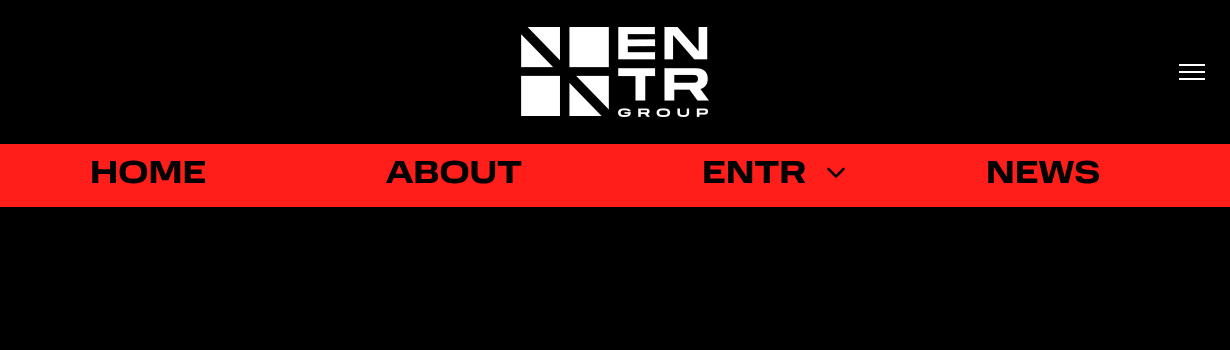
<!DOCTYPE html>
<meta charset="utf-8">
<style>body { margin: 0 } canvas { display: block }</style>
<canvas id="canvas" width="1230" height="350"></canvas>
<img id="img1" src="img_01.png" hidden>
<img id="img2" src="img_02.png" hidden>
<script>
window.onload = function () {
	const canvas = document.getElementById("canvas");
	const ctx = canvas.getContext("2d");
	ctx.miterLimit = 4;
	ctx.fontKerning = "normal";
	function txt(s, x, y) {
		ctx.fillText(s, x, y);
	}
	function fill(x, y, w, h) {
		ctx.fillRect(x, y, w, h);
	}
	function img(id, x, y, w, h) {
		ctx.drawImage(document.getElementById(id), x, y, w, h);
	}

	ctx.fillStyle = "#000000";
	fill(0, 0, 1230, 350);
	img("img1", 521, 27, 188, 90);
	ctx.fillStyle = "#FFFFFF";
	fill(1179, 64, 26, 2);
	fill(1179, 71, 26, 2);
	fill(1179, 78, 26, 2);
	ctx.fillStyle = "#FF1E19";
	fill(0, 144, 1230, 63);
	img("img2", 827, 167, 18, 11);
	ctx.font = "bold 32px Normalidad";
	ctx.fillStyle = "#000000";
	txt("HOME", 90, 183);
	txt("ABOUT", 386, 183);
	txt("ENTR", 702, 183);
	txt("NEWS", 986, 183);
};
</script>
